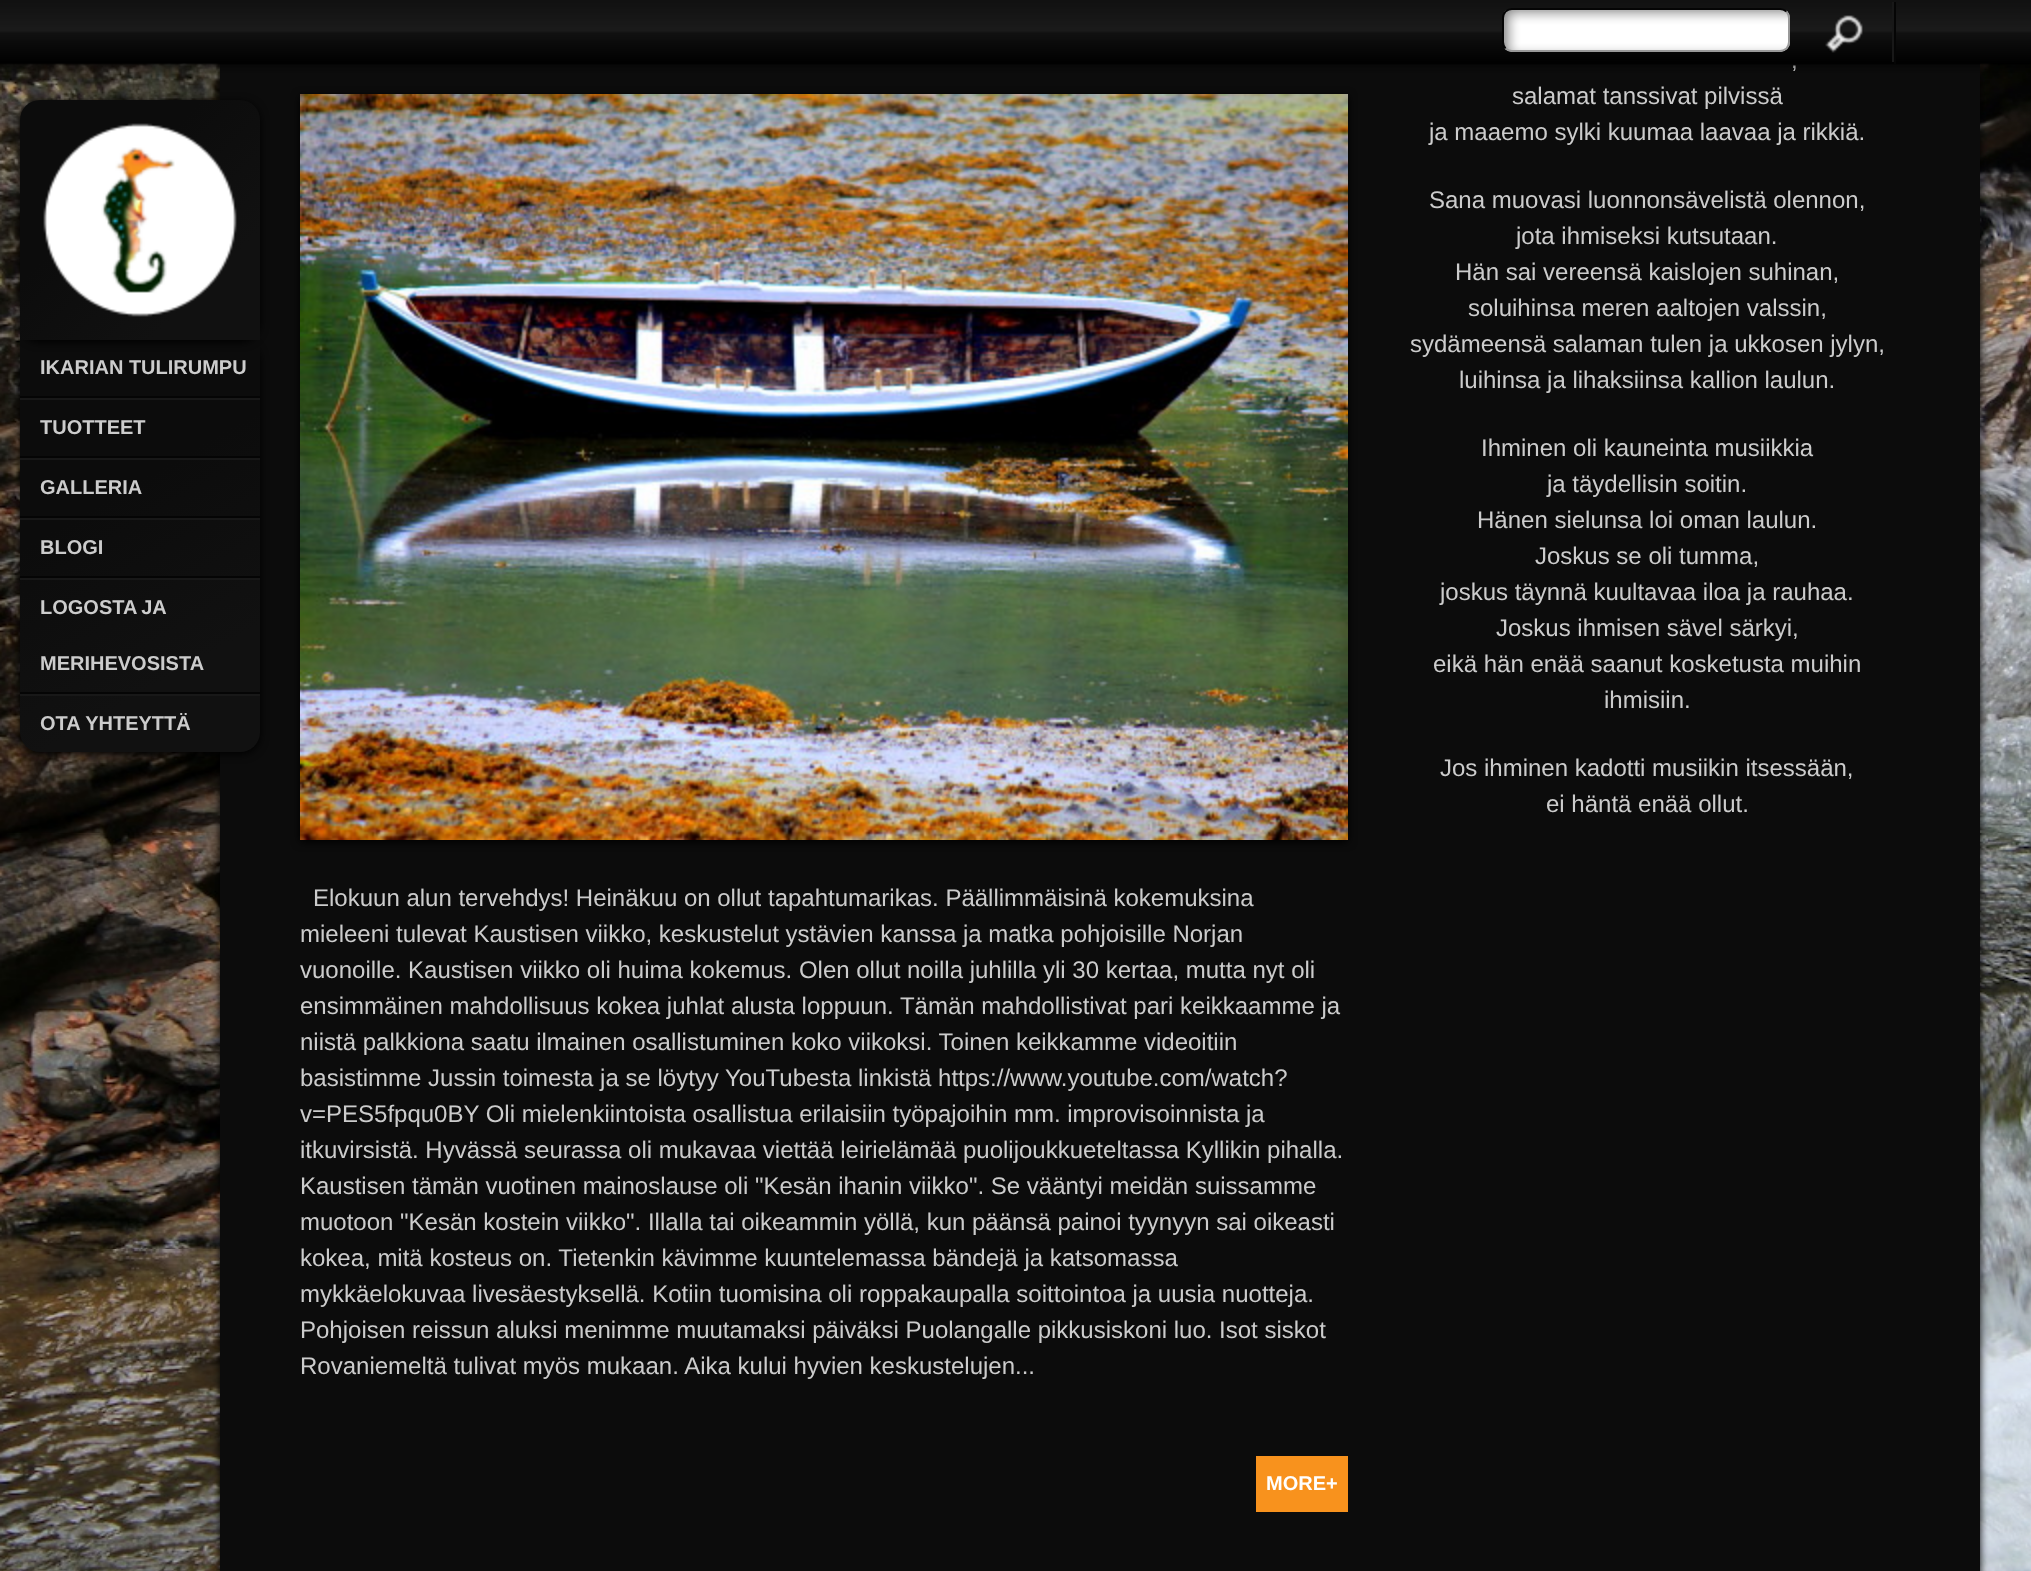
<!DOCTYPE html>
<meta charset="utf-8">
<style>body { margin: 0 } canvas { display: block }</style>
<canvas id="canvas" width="2031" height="1571"></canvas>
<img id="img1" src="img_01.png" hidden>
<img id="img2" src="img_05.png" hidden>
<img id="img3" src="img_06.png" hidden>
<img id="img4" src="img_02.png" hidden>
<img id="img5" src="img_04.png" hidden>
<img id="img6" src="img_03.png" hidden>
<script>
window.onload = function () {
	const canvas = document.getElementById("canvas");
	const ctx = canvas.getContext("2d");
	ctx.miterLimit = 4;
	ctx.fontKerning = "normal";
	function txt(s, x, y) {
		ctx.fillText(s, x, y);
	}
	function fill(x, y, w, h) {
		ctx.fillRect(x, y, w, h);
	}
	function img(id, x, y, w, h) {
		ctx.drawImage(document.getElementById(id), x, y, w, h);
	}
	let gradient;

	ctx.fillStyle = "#FFFFFF";
	fill(0, 0, 2031, 1571);
	img("img1", 0, 63, 2031, 1508);
	ctx.fillStyle = "#000000";
	ctx.filter = "blur(4px)";
	ctx.beginPath();
	ctx.rect(220, -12, 1760, 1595);
	ctx.fill();
	ctx.filter = "none";
	ctx.fillStyle = "#0C0C0C";
	fill(220, 63, 1760, 1508);
	ctx.fillStyle = "#000000";
	ctx.filter = "blur(4px)";
	ctx.beginPath();
	ctx.roundRect(20, 342, 240, 412, 20);
	ctx.fill();
	ctx.filter = "none";
	gradient = ctx.createLinearGradient(260, 752, 20, 340);
	gradient.addColorStop(0.23, "#111111");
	gradient.addColorStop(0.62, "#0C0C0C");
	ctx.fillStyle = gradient;
	ctx.beginPath();
	ctx.roundRect(20, 340, 240, 412, [0, 0, 20, 20]);
	ctx.fill();
	ctx.fillStyle = "#000000";
	ctx.filter = "blur(4px)";
	ctx.beginPath();
	ctx.roundRect(20, 102, 240, 240, 20);
	ctx.fill();
	ctx.filter = "none";
	gradient = ctx.createLinearGradient(260, 340, 20, 100);
	gradient.addColorStop(0.23, "#111111");
	gradient.addColorStop(0.62, "#0C0C0C");
	ctx.fillStyle = gradient;
	ctx.beginPath();
	ctx.roundRect(20, 100, 240, 240, [20, 20, 0, 0]);
	ctx.fill();
	img("img2", 43, 123, 194, 194);
	ctx.fillStyle = "#050505";
	fill(20, 396, 240, 2);
	ctx.fillStyle = "#181818";
	fill(20, 398, 240, 2);
	ctx.fillStyle = "#050505";
	fill(20, 456, 240, 2);
	ctx.fillStyle = "#181818";
	fill(20, 458, 240, 2);
	ctx.fillStyle = "#050505";
	fill(20, 516, 240, 2);
	ctx.fillStyle = "#181818";
	fill(20, 518, 240, 2);
	ctx.fillStyle = "#050505";
	fill(20, 576, 240, 2);
	ctx.fillStyle = "#181818";
	fill(20, 578, 240, 2);
	ctx.fillStyle = "#050505";
	fill(20, 692, 240, 2);
	ctx.fillStyle = "#181818";
	fill(20, 694, 240, 2);
	ctx.fillStyle = "#000000";
	ctx.filter = "blur(4px)";
	ctx.beginPath();
	ctx.rect(300, 96, 1048, 746);
	ctx.fill();
	ctx.filter = "none";
	img("img3", 300, 94, 1048, 746);
	ctx.fillStyle = "#F8921D";
	fill(1256, 1456, 92, 56);
	ctx.font = "bold 20px Liberation Sans";
	ctx.fillStyle = "#CCCCCC";
	txt("IKARIAN TULIRUMPU", 40, 374);
	txt("TUOTTEET", 40, 434);
	txt("GALLERIA", 40, 494);
	txt("BLOGI", 40, 554);
	ctx.wordSpacing = "-1px";
	txt("LOGOSTA JA", 40, 614);
	ctx.wordSpacing = "0px";
	txt("MERIHEVOSISTA", 40, 670);
	txt("OTA YHTEYTTÄ", 40, 730);
	ctx.font = "24px Liberation Sans";
	txt(",", 1791, 68);
	img("img4", 0, 0, 2031, 73);
	ctx.fillStyle = "#181818";
	fill(1892, 2, 2, 60);
	img("img5", 1825, 15, 38, 38);
	img("img6", 1504, 10, 286, 42);
	ctx.beginPath();
	ctx.moveTo(1786.5, 11.5);
	ctx.bezierCurveTo(1788, 13.5, 1789, 15.5, 1789, 18);
	ctx.lineTo(1789, 42);
	ctx.bezierCurveTo(1789, 44.5, 1788, 46.5, 1786.5, 48.5);
	ctx.bezierCurveTo(1784.5, 50, 1782.5, 51, 1780, 51);
	ctx.lineTo(1512, 51);
	ctx.bezierCurveTo(1509.5, 51, 1507.5, 50, 1505.5, 48.5);
	ctx.strokeStyle = "#999999";
	ctx.lineWidth = 2;
	ctx.stroke();
	ctx.beginPath();
	ctx.moveTo(1505.5, 48.5);
	ctx.bezierCurveTo(1504, 46.5, 1503, 44.5, 1503, 42);
	ctx.lineTo(1503, 18);
	ctx.bezierCurveTo(1503, 15.5, 1504, 13.5, 1505.5, 11.5);
	ctx.bezierCurveTo(1507.5, 10, 1509.5, 9, 1512, 9);
	ctx.lineTo(1780, 9);
	ctx.bezierCurveTo(1782.5, 9, 1784.5, 10, 1786.5, 11.5);
	ctx.strokeStyle = "#050505";
	ctx.stroke();
	ctx.fillStyle = "#050505";
	fill(1894, 2, 2, 62);
	ctx.fillStyle = "#CCCCCC";
	txt("salamat tanssivat pilvissä", 1512, 104);
	txt("ja maaemo sylki kuumaa laavaa ja rikkiä.", 1429, 140);
	txt("Sana muovasi luonnonsävelistä olennon,", 1429, 208);
	txt("jota ihmiseksi kutsutaan.", 1516, 244);
	txt("Hän sai vereensä kaislojen suhinan,", 1455, 280);
	txt("soluihinsa meren aaltojen valssin,", 1468, 316);
	txt("sydämeensä salaman tulen ja ukkosen jylyn,", 1410, 352);
	txt("luihinsa ja lihaksiinsa kallion laulun.", 1459, 388);
	txt("Ihminen oli kauneinta musiikkia", 1481, 456);
	txt("ja täydellisin soitin.", 1547, 492);
	txt("Hänen sielunsa loi oman laulun.", 1477, 528);
	txt("Joskus se oli tumma,", 1535, 564);
	txt("joskus täynnä kuultavaa iloa ja rauhaa.", 1440, 600);
	txt("Joskus ihmisen sävel särkyi,", 1496, 636);
	txt("eikä hän enää saanut kosketusta muihin", 1433, 672);
	txt("ihmisiin.", 1604, 708);
	txt("Jos ihminen kadotti musiikin itsessään,", 1440, 776);
	txt("ei häntä enää ollut.", 1546, 812);
	txt("Elokuun alun tervehdys! Heinäkuu on ollut tapahtumarikas. Päällimmäisinä kokemuksina", 313, 906);
	txt("mieleeni tulevat Kaustisen viikko, keskustelut ystävien kanssa ja matka pohjoisille Norjan", 300, 942);
	txt("vuonoille. Kaustisen viikko oli huima kokemus. Olen ollut noilla juhlilla yli 30 kertaa, mutta nyt oli", 300, 978);
	txt("ensimmäinen mahdollisuus kokea juhlat alusta loppuun. Tämän mahdollistivat pari keikkaamme ja", 300, 1014);
	txt("niistä palkkiona saatu ilmainen osallistuminen koko viikoksi. Toinen keikkamme videoitiin", 300, 1050);
	txt("basistimme Jussin toimesta ja se löytyy YouTubesta linkistä https://www.youtube.com/watch?", 300, 1086);
	txt("v=PES5fpqu0BY Oli mielenkiintoista osallistua erilaisiin työpajoihin mm. improvisoinnista ja", 300, 1122);
	txt("itkuvirsistä. Hyvässä seurassa oli mukavaa viettää leirielämää puolijoukkueteltassa Kyllikin pihalla.", 300, 1158);
	txt("Kaustisen tämän vuotinen mainoslause oli \"Kesän ihanin viikko\". Se vääntyi meidän suissamme", 300, 1194);
	txt("muotoon \"Kesän kostein viikko\". Illalla tai oikeammin yöllä, kun päänsä painoi tyynyyn sai oikeasti", 300, 1230);
	txt("kokea, mitä kosteus on. Tietenkin kävimme kuuntelemassa bändejä ja katsomassa", 300, 1266);
	txt("mykkäelokuvaa livesäestyksellä. Kotiin tuomisina oli roppakaupalla soittointoa ja uusia nuotteja.", 300, 1302);
	txt("Pohjoisen reissun aluksi menimme muutamaksi päiväksi Puolangalle pikkusiskoni luo. Isot siskot", 300, 1338);
	txt("Rovaniemeltä tulivat myös mukaan. Aika kului hyvien keskustelujen...", 300, 1374);
	ctx.font = "bold 20px Liberation Sans";
	ctx.fillStyle = "#FFFFFF";
	txt("MORE+", 1266, 1490);
};
</script>
